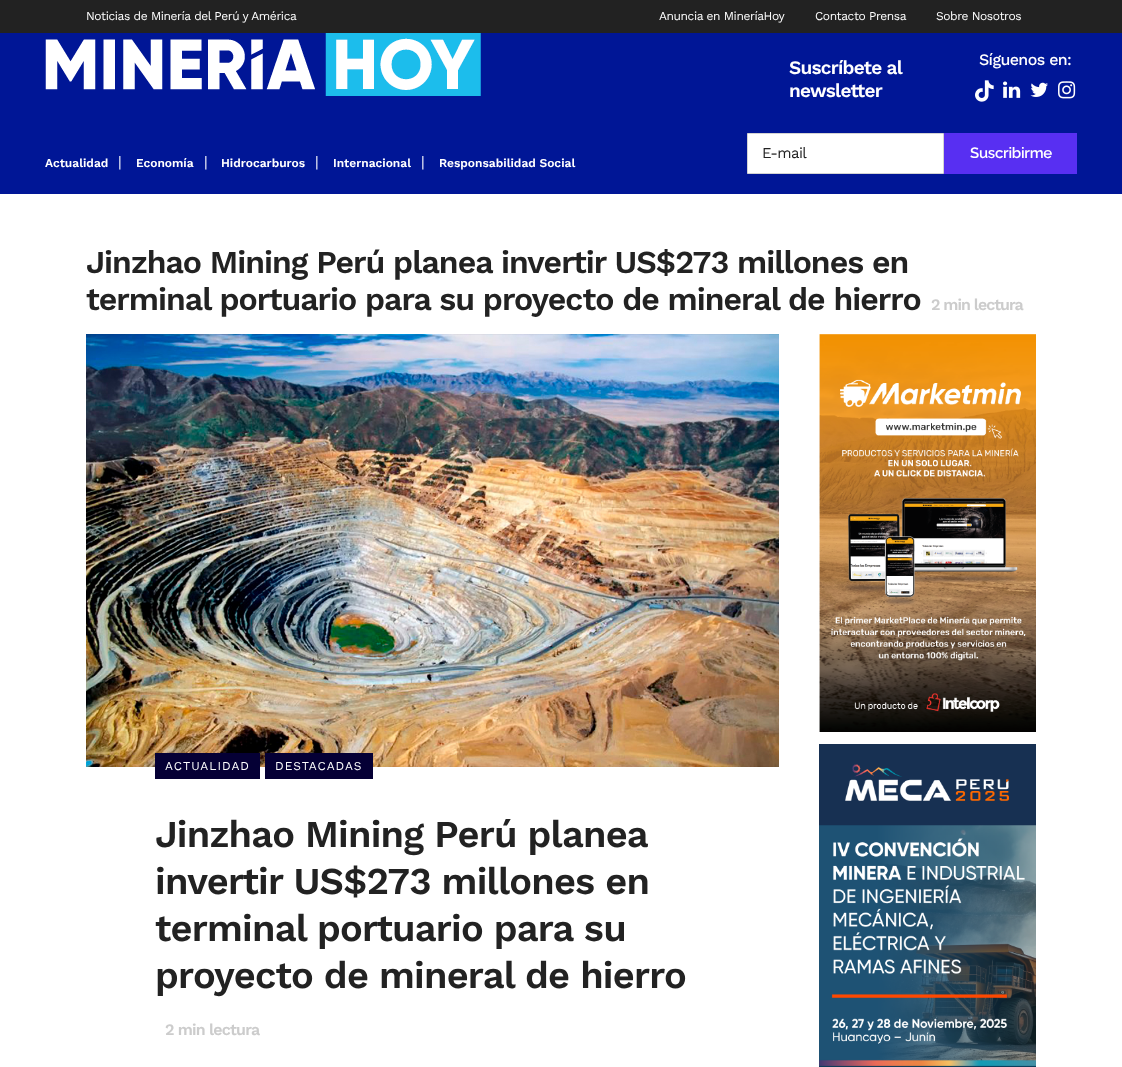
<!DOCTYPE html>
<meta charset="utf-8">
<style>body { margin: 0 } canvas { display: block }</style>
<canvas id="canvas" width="1122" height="1067"></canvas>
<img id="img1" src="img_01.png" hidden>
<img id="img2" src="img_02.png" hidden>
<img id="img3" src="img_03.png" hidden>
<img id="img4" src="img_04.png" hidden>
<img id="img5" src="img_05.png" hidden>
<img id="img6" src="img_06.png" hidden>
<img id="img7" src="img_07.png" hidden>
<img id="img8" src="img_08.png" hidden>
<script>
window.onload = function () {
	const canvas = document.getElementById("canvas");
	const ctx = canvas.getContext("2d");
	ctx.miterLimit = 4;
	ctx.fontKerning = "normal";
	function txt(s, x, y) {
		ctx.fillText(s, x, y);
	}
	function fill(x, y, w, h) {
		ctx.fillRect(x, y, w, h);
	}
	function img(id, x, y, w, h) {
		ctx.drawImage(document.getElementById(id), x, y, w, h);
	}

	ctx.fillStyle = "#FFFFFF";
	fill(0, 0, 1122, 1067);
	ctx.fillStyle = "#222222";
	fill(0, 0, 1122, 33);
	ctx.fillStyle = "#001696";
	fill(0, 33, 1122, 161);
	img("img1", 45, 33, 436, 63);
	img("img2", 975, 80, 19, 22);
	img("img3", 1003, 81, 18, 17);
	img("img4", 1030, 82, 18, 15);
	img("img5", 1058, 81, 18, 18);
	ctx.fillStyle = "#FFFFFF";
	ctx.beginPath();
	ctx.rect(747.5, 133.5, 196, 40);
	ctx.fill();
	ctx.strokeStyle = "#D3D3D3";
	ctx.stroke();
	ctx.fillStyle = "#582FF2";
	fill(944, 133, 133, 41);
	img("img6", 86, 334, 693, 433);
	ctx.fillStyle = "#050035";
	fill(155, 753, 105, 26);
	fill(265, 753, 108, 26);
	img("img7", 819, 334, 217, 398);
	img("img8", 819, 744, 217, 323);
	ctx.letterSpacing = "-0.4px";
	ctx.font = "12px Work Sans";
	ctx.fillStyle = "#FFFFFF";
	txt("Noticias de Minería del Perú y América", 86, 20);
	txt("Anuncia en MineríaHoy", 659, 20);
	txt("Contacto Prensa", 815, 20);
	txt("Sobre Nosotros", 936, 20);
	ctx.letterSpacing = "-0.75px";
	ctx.font = "600 19px Work Sans";
	txt("Suscríbete al", 789, 74);
	txt("newsletter", 789, 97);
	ctx.letterSpacing = "-0.6px";
	ctx.font = "500 16px Work Sans";
	txt("Síguenos en:", 979, 65);
	ctx.font = "15px Work Sans";
	ctx.fillStyle = "#222222";
	txt("E-mail", 762, 158);
	ctx.letterSpacing = "-0.25px";
	ctx.font = "600 15px Raleway";
	ctx.fillStyle = "#FFFFFF";
	txt("Suscribirme", 970, 158);
	ctx.letterSpacing = "0px";
	ctx.font = "600 12px Work Sans";
	txt("Actualidad", 45, 167);
	ctx.font = "15px Work Sans";
	txt("|", 118, 167);
	ctx.font = "600 12px Work Sans";
	txt("Economía", 136, 167);
	ctx.font = "15px Work Sans";
	txt("|", 204, 167);
	ctx.font = "600 12px Work Sans";
	txt("Hidrocarburos", 221, 167);
	ctx.font = "15px Work Sans";
	txt("|", 315, 167);
	ctx.font = "600 12px Work Sans";
	txt("Internacional", 333, 167);
	ctx.font = "15px Work Sans";
	txt("|", 421, 167);
	ctx.font = "600 12px Work Sans";
	txt("Responsabilidad Social", 439, 167);
	ctx.letterSpacing = "-1px";
	ctx.font = "600 32px Work Sans";
	ctx.fillStyle = "#222222";
	txt("Jinzhao Mining Perú planea invertir US$273 millones en", 86, 273);
	txt("terminal portuario para su proyecto de mineral de hierro", 86, 310);
	ctx.font = "600 16px Work Sans";
	ctx.fillStyle = "#CCCCCC";
	txt("2 min lectura", 931, 310);
	ctx.letterSpacing = "1px";
	ctx.font = "12px Work Sans";
	ctx.fillStyle = "#FFFFFF";
	txt("ACTUALIDAD", 165, 770);
	txt("DESTACADAS", 275, 770);
	ctx.letterSpacing = "-0.8px";
	ctx.font = "600 38px Work Sans";
	ctx.fillStyle = "#222222";
	txt("Jinzhao Mining Perú planea", 155, 847);
	txt("invertir US$273 millones en", 155, 894);
	txt("terminal portuario para su", 155, 941);
	txt("proyecto de mineral de hierro", 155, 988);
	ctx.font = "600 16px Work Sans";
	ctx.fillStyle = "#CCCCCC";
	txt("2 min lectura", 165, 1035);
};
</script>
